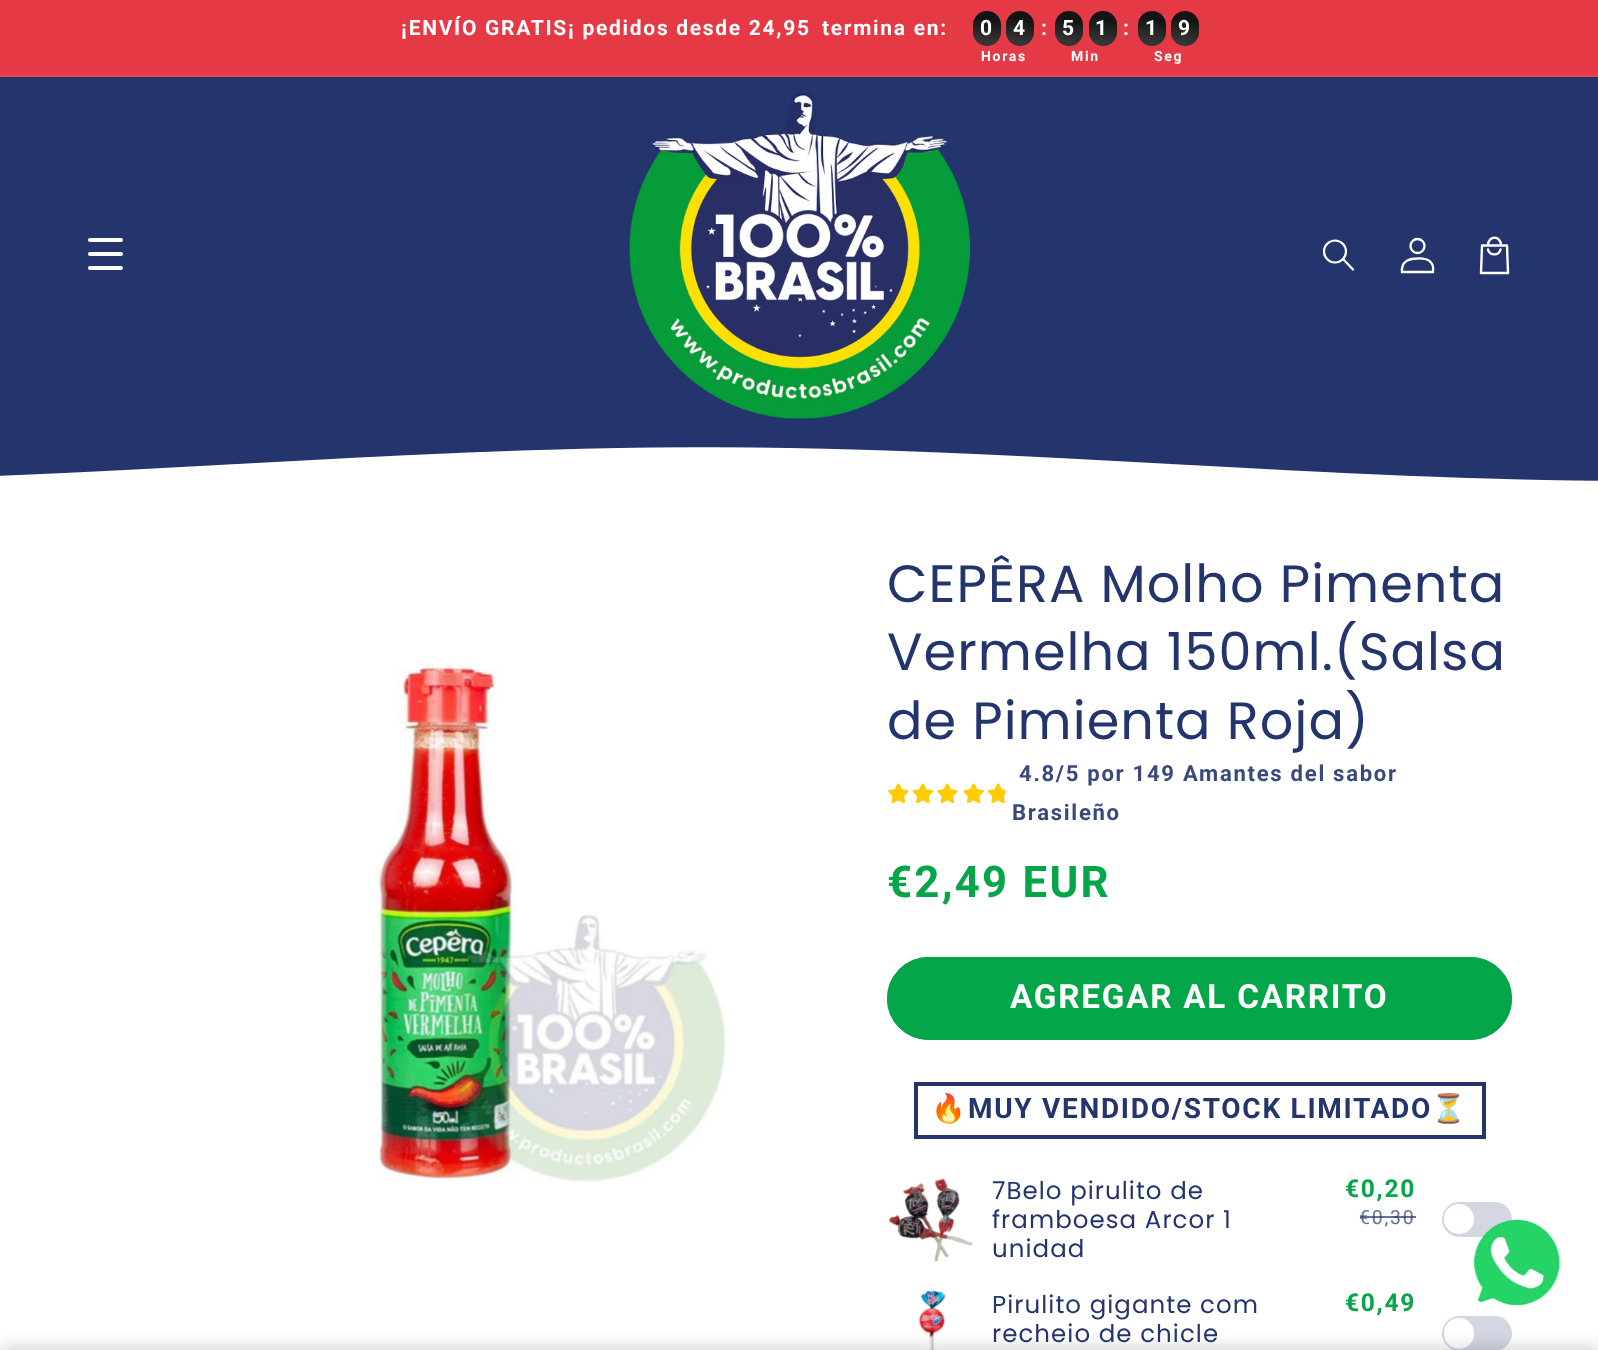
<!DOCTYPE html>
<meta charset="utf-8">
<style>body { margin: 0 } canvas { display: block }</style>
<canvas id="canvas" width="1598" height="1350"></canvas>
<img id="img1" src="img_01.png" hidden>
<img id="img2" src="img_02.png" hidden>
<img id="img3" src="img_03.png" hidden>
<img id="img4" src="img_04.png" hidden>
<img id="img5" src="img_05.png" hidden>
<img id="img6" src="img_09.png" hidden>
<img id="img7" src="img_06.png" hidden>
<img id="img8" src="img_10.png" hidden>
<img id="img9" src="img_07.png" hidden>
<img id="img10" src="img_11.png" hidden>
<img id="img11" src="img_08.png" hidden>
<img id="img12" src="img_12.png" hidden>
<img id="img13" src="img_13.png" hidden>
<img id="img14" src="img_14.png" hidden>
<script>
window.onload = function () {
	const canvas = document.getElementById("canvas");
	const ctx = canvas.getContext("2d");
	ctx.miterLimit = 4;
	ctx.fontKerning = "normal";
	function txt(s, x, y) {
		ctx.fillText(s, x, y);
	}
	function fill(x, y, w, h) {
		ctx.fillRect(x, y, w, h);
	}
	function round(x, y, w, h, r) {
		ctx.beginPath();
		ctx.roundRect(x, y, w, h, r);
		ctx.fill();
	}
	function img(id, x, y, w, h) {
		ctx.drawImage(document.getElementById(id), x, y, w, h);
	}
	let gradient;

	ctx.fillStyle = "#FFFFFF";
	fill(0, 0, 1598, 1350);
	ctx.fillStyle = "#E63946";
	fill(0, 0, 1598, 75);
	ctx.fillStyle = "#E84955";
	fill(0, 75, 1598, 2);
	gradient = ctx.createLinearGradient(990, 9, 984, 47);
	gradient.addColorStop(0.28, "#141414");
	gradient.addColorStop(0.86, "#353535");
	ctx.fillStyle = gradient;
	round(973, 11, 28, 35, 14);
	gradient = ctx.createLinearGradient(1024, 9, 1017, 47);
	gradient.addColorStop(0.28, "#141414");
	gradient.addColorStop(0.86, "#353535");
	ctx.fillStyle = gradient;
	round(1006, 11, 28, 35, 14);
	gradient = ctx.createLinearGradient(1073, 9, 1066, 47);
	gradient.addColorStop(0.28, "#141414");
	gradient.addColorStop(0.86, "#353535");
	ctx.fillStyle = gradient;
	round(1055, 11, 28, 35, 14);
	gradient = ctx.createLinearGradient(1106, 9, 1099, 47);
	gradient.addColorStop(0.28, "#141414");
	gradient.addColorStop(0.86, "#353535");
	ctx.fillStyle = gradient;
	round(1089, 11, 28, 35, 14);
	gradient = ctx.createLinearGradient(1155, 9, 1148, 47);
	gradient.addColorStop(0.28, "#141414");
	gradient.addColorStop(0.86, "#353535");
	ctx.fillStyle = gradient;
	round(1138, 11, 28, 35, 14);
	gradient = ctx.createLinearGradient(1188, 9, 1181, 47);
	gradient.addColorStop(0.28, "#141414");
	gradient.addColorStop(0.86, "#353535");
	ctx.fillStyle = gradient;
	round(1171, 11, 28, 35, 14);
	ctx.fillStyle = "#24356D";
	fill(0, 77, 1598, 357);
	ctx.fillStyle = "#FFFFFF";
	round(88, 238, 35, 4, 2);
	round(88, 252, 35, 4, 2);
	round(88, 266, 35, 4, 2);
	img("img1", 629, 92, 342, 327);
	ctx.beginPath();
	ctx.arc(1335, 251.5, 11, 0, Math.PI * 2);
	ctx.strokeStyle = "#FFFFFF";
	ctx.lineWidth = 2.2;
	ctx.stroke();
	ctx.beginPath();
	ctx.moveTo(1353, 269.5);
	ctx.lineTo(1343, 259);
	ctx.lineCap = "round";
	ctx.lineJoin = "round";
	ctx.stroke();
	ctx.beginPath();
	ctx.arc(1417.5, 246, 7, 0, Math.PI * 2);
	ctx.lineWidth = 2.3;
	ctx.stroke();
	ctx.beginPath();
	ctx.moveTo(1402, 272);
	ctx.lineTo(1433, 272);
	ctx.bezierCurveTo(1434.5, 261, 1427, 258, 1417.5, 258.5);
	ctx.bezierCurveTo(1408.5, 258.5, 1401, 261.5, 1402, 272);
	ctx.closePath();
	ctx.lineCap = "butt";
	ctx.lineJoin = "miter";
	ctx.stroke();
	ctx.beginPath();
	ctx.moveTo(1482, 245.5);
	ctx.lineTo(1507, 245.5);
	ctx.lineTo(1508, 273);
	ctx.lineTo(1481, 273);
	ctx.closePath();
	ctx.moveTo(1488, 245.5);
	ctx.bezierCurveTo(1488, 235, 1501, 235, 1501, 245.5);
	ctx.moveTo(1488, 249.5);
	ctx.bezierCurveTo(1489.5, 256, 1499, 256, 1500.5, 249.5);
	ctx.lineWidth = 2.4;
	ctx.lineCap = "round";
	ctx.lineJoin = "round";
	ctx.stroke();
	img("img2", 0, 434, 1598, 47);
	img("img3", 374, 663, 353, 520);
	img("img4", 888, 783, 21, 20);
	img("img5", 888, 783, 21, 21);
	img("img6", 912, 783, 21, 20);
	img("img7", 912, 783, 21, 21);
	img("img4", 937, 783, 21, 20);
	img("img5", 937, 783, 21, 21);
	img("img8", 963, 783, 21, 20);
	img("img9", 963, 783, 21, 21);
	img("img10", 988, 783, 20, 20);
	img("img11", 988, 783, 17, 21);
	ctx.beginPath();
	ctx.roundRect(888, 958, 623, 81, 40.5);
	ctx.strokeStyle = "#05A549";
	ctx.lineWidth = 2;
	ctx.lineJoin = "miter";
	ctx.stroke();
	ctx.fillStyle = "#05A549";
	round(887, 957, 625, 83, 41.5);
	ctx.strokeStyle = "#24356D";
	ctx.lineWidth = 4;
	ctx.strokeRect(916, 1084, 568, 53);
	img("img12", 889, 1178, 84, 84);
	ctx.fillStyle = "#D3D7E2";
	round(1442, 1202, 70, 35, 17.5);
	ctx.fillStyle = "#FFFFFF";
	ctx.beginPath();
	ctx.arc(1459, 1219, 15, 0, Math.PI * 2);
	ctx.fill();
	img("img13", 918, 1290, 28, 60);
	ctx.fillStyle = "#D3D7E2";
	round(1442, 1316, 70, 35, 17.5);
	ctx.fillStyle = "#FFFFFF";
	round(1444, 1318, 30, 31, 15);
	ctx.fillStyle = "rgba(0, 0, 0, 0.2)";
	ctx.filter = "blur(9px)";
	ctx.beginPath();
	ctx.rect(0, 1349, 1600, 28);
	ctx.fill();
	ctx.filter = "none";
	img("img14", 1473, 1219, 88, 86);
	ctx.letterSpacing = "1.7px";
	ctx.font = "bold 21px Roboto";
	ctx.fillStyle = "#FFFFFF";
	txt("¡ENVÍO GRATIS¡ pedidos desde 24,95  termina en:", 401, 35);
	txt("0", 980, 35);
	txt("4", 1013, 35);
	ctx.font = "bold 14px Roboto";
	txt("Horas", 981, 61);
	ctx.font = "bold 21px Roboto";
	txt(":", 1041, 35);
	txt("5", 1062, 35);
	txt("1", 1095, 35);
	ctx.font = "bold 14px Roboto";
	txt("Min", 1071, 61);
	ctx.font = "bold 21px Roboto";
	txt(":", 1123, 35);
	txt("1", 1145, 35);
	txt("9", 1178, 35);
	ctx.font = "bold 14px Roboto";
	txt("Seg", 1154, 61);
	ctx.letterSpacing = "1.05px";
	ctx.font = "52.5px Poppins";
	ctx.fillStyle = "#24356D";
	txt("CEPÊRA Molho Pimenta", 887, 602);
	txt("Vermelha 150ml.(Salsa", 887, 670);
	txt("de Pimienta Roja)", 887, 739);
	ctx.letterSpacing = "1.7px";
	ctx.font = "bold 22.1px Roboto";
	ctx.fillStyle = "#3A497C";
	txt("4.8/5 por 149 Amantes del sabor", 1019, 781);
	txt("Brasileño", 1012, 820);
	ctx.letterSpacing = "2.25px";
	ctx.font = "bold 43.75px Roboto";
	ctx.fillStyle = "#05A549";
	txt("€2,49 EUR", 887, 897);
	ctx.letterSpacing = "1.75px";
	ctx.font = "bold 33.25px Roboto";
	ctx.fillStyle = "#FFFFFF";
	txt("AGREGAR AL CARRITO", 1010, 1008);
	ctx.letterSpacing = "1.7px";
	ctx.font = "bold 28px Noto Color Emoji";
	ctx.fillStyle = "#24356D";
	txt("🔥", 931, 1118);
	ctx.font = "bold 28px Roboto";
	txt("MUY VENDIDO/STOCK LIMITADO", 968, 1118);
	ctx.font = "bold 28px Noto Color Emoji";
	txt("⏳", 1431, 1118);
	ctx.letterSpacing = "1.05px";
	ctx.font = "24.5px Poppins";
	txt("7Belo pirulito de", 992, 1199);
	txt("framboesa Arcor 1", 992, 1228);
	txt("unidad", 992, 1257);
	ctx.letterSpacing = "1.75px";
	ctx.font = "bold 24.5px Roboto";
	ctx.fillStyle = "#05A549";
	txt("€0,20", 1345, 1197);
	ctx.font = "19.5px Roboto";
	ctx.fillStyle = "#667299";
	txt("€0,30", 1359, 1224);
	ctx.fillStyle = "rgba(36, 53, 109, 0.7)";
	fill(1360, 1216, 56, 2);
	ctx.letterSpacing = "1.05px";
	ctx.font = "24.5px Poppins";
	ctx.fillStyle = "#24356D";
	txt("Pirulito gigante com", 992, 1313);
	txt("recheio de chicle", 992, 1342);
	ctx.letterSpacing = "1.75px";
	ctx.font = "bold 24.5px Roboto";
	ctx.fillStyle = "#05A549";
	txt("€0,49", 1345, 1311);
};
</script>
